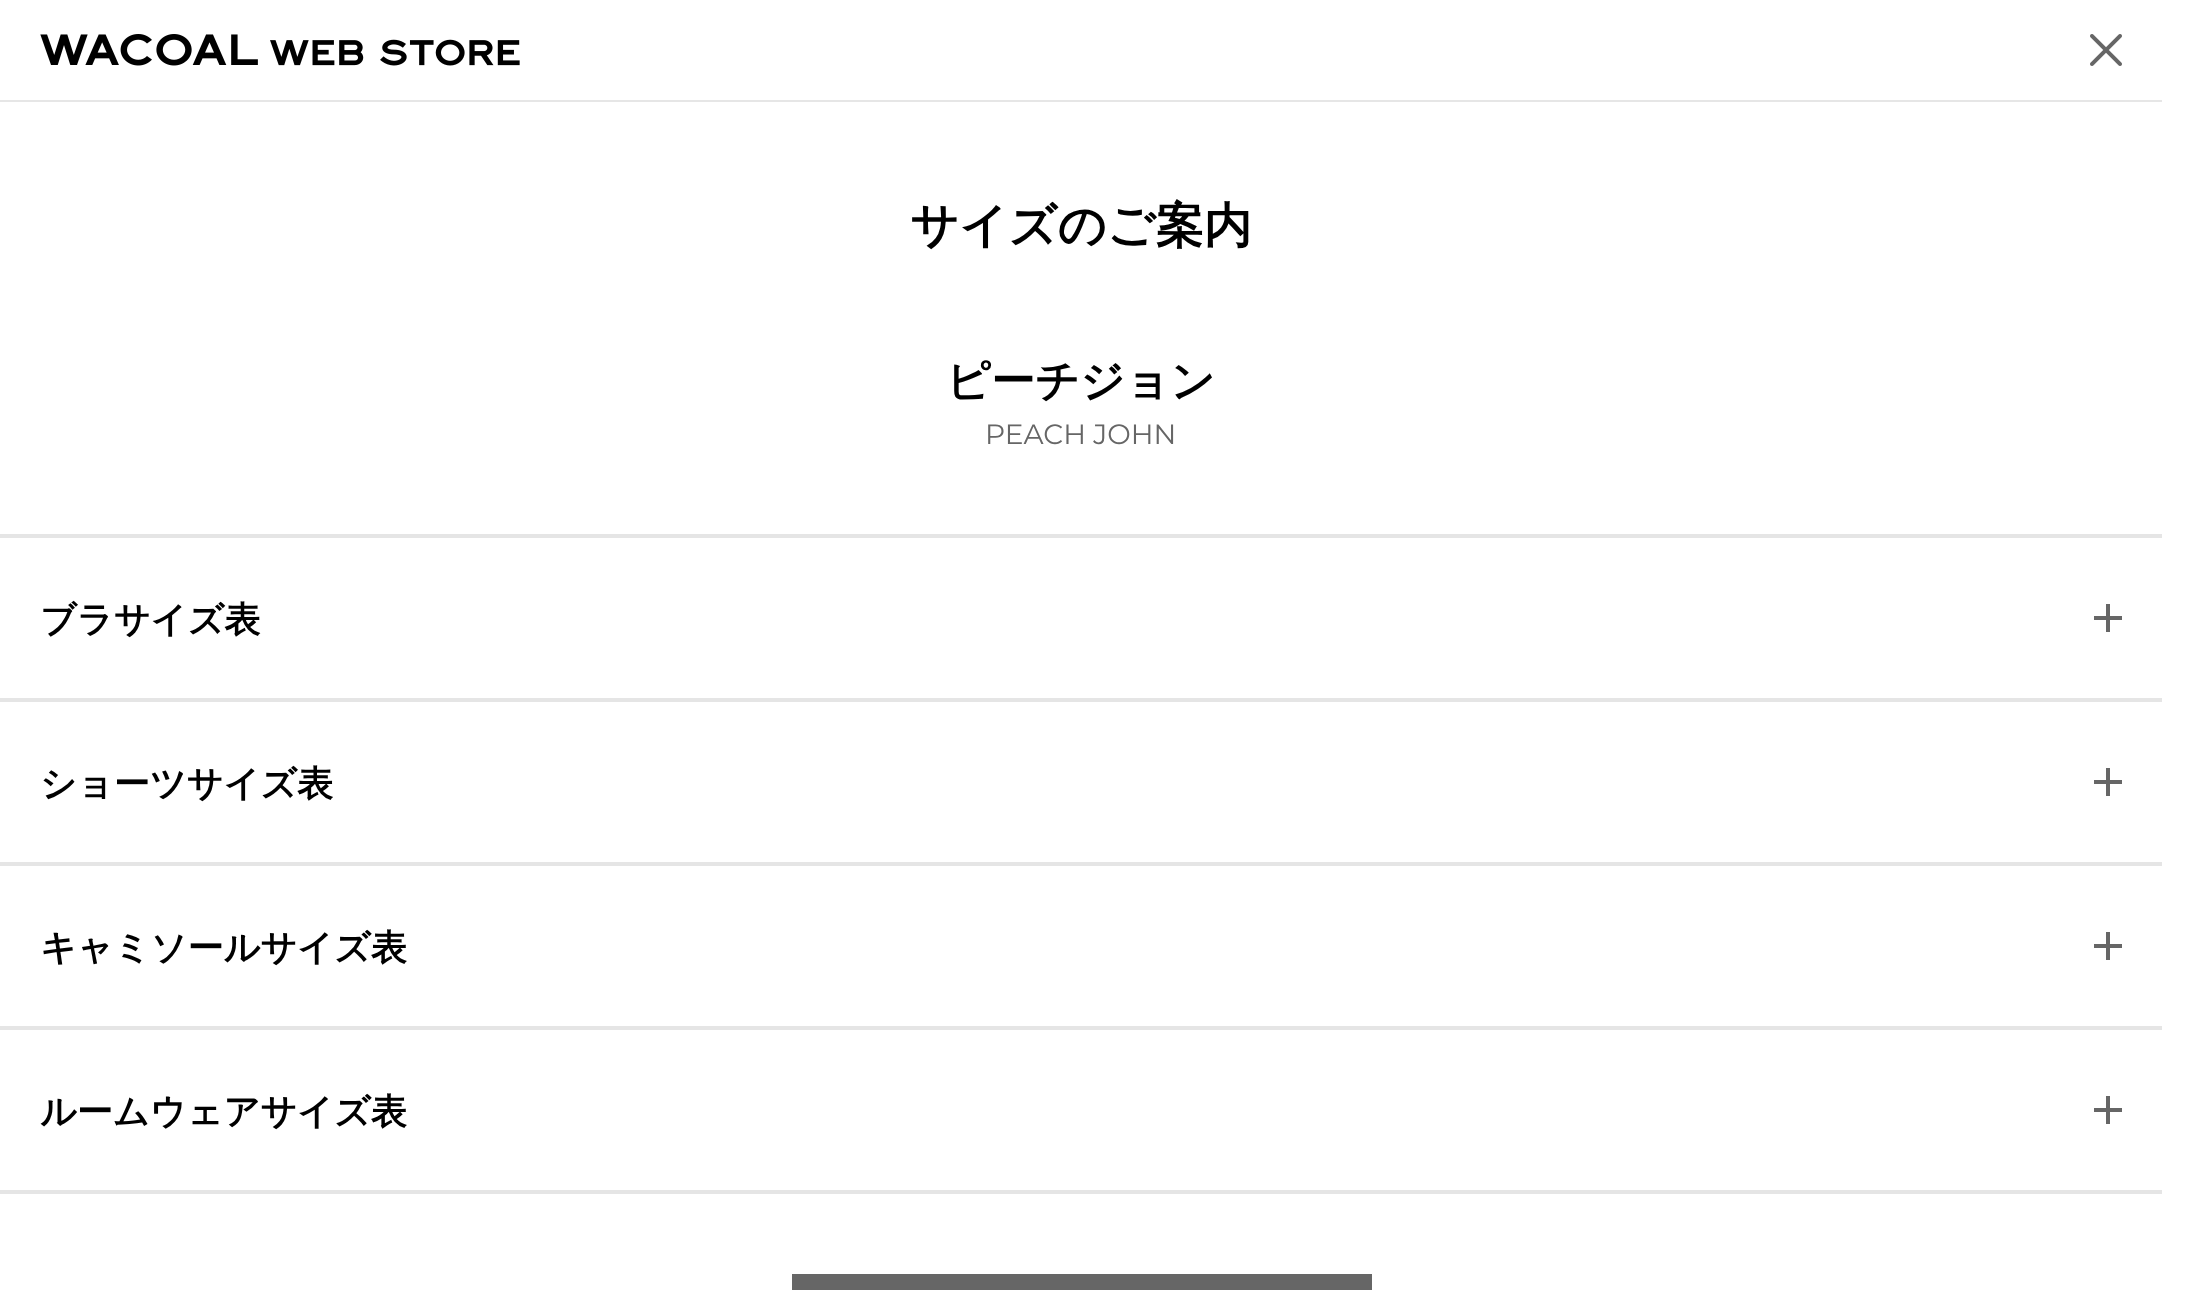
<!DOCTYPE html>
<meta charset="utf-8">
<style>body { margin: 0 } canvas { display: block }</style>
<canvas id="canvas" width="2191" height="1290"></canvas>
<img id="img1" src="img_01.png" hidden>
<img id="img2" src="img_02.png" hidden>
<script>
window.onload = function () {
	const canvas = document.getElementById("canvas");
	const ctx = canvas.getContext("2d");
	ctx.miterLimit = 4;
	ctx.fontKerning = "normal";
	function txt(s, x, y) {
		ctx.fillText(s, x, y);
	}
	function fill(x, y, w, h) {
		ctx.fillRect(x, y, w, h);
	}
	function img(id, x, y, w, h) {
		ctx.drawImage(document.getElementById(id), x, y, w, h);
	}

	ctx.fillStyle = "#FFFFFF";
	fill(0, 0, 2191, 1290);
	ctx.fillStyle = "#E6E6E6";
	fill(0, 100, 2162, 2);
	img("img1", 40, 34, 480, 32);
	img("img2", 2090, 34, 32, 32);
	ctx.fillStyle = "#E5E5E5";
	fill(0, 534, 2162, 4);
	fill(0, 698, 2162, 4);
	ctx.fillStyle = "#666666";
	fill(2094, 616, 28, 4);
	fill(2106, 604, 4, 28);
	ctx.fillStyle = "#E5E5E5";
	fill(0, 862, 2162, 4);
	ctx.fillStyle = "#666666";
	fill(2094, 780, 28, 4);
	fill(2106, 768, 4, 28);
	ctx.fillStyle = "#E5E5E5";
	fill(0, 1026, 2162, 4);
	ctx.fillStyle = "#666666";
	fill(2094, 944, 28, 4);
	fill(2106, 932, 4, 28);
	ctx.fillStyle = "#E5E5E5";
	fill(0, 1190, 2162, 4);
	ctx.fillStyle = "#666666";
	fill(2094, 1108, 28, 4);
	fill(2106, 1096, 4, 28);
	fill(792, 1274, 580, 16);
	ctx.font = "bold 48px WenQuanYi Zen Hei";
	ctx.fillStyle = "#000000";
	txt("サイズのご案内", 910, 242);
	ctx.font = "bold 44px WenQuanYi Zen Hei";
	txt("ピーチジョン", 946, 396);
	ctx.font = "28px Montserrat";
	ctx.fillStyle = "#666666";
	txt("PEACH JOHN", 985, 444);
	ctx.font = "bold 36px WenQuanYi Zen Hei";
	ctx.fillStyle = "#000000";
	txt("ブラサイズ表", 40, 632);
	txt("ショーツサイズ表", 40, 796);
	txt("キャミソールサイズ表", 40, 960);
	txt("ルームウェアサイズ表", 40, 1124);
};
</script>
